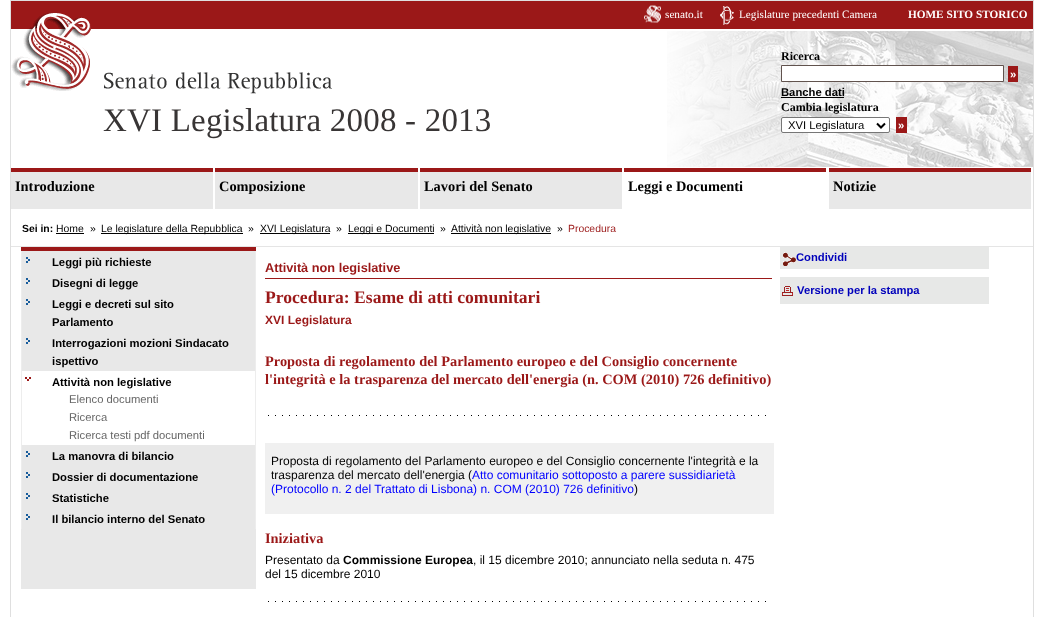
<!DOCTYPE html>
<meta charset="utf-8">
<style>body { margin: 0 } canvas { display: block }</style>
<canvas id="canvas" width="1041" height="617"></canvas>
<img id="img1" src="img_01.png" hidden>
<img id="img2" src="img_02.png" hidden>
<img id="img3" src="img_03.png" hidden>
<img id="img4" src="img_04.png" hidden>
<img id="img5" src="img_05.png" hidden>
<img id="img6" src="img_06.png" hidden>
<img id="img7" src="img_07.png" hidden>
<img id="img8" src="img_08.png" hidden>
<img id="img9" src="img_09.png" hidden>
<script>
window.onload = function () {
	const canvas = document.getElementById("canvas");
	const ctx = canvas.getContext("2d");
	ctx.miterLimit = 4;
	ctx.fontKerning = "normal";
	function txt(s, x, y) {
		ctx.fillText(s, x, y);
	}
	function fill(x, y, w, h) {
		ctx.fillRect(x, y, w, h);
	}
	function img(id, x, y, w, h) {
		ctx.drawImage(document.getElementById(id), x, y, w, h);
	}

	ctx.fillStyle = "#FFFFFF";
	fill(0, 0, 1041, 617);
	ctx.strokeStyle = "#DFDFDF";
	ctx.strokeRect(10.5, 0.5, 1023, 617);
	img("img1", 667, 31, 366, 136);
	img("img2", 11, 1, 368, 93);
	ctx.fillStyle = "#9B1818";
	fill(379, 1, 654, 28);
	img("img3", 644, 5, 17, 18);
	img("img4", 720, 6, 14, 19);
	ctx.fillStyle = "#FFFFFF";
	ctx.beginPath();
	ctx.rect(781.5, 65.5, 222, 16);
	ctx.fill();
	ctx.strokeStyle = "#61534E";
	ctx.stroke();
	ctx.fillStyle = "#9B1818";
	fill(1008, 66, 10, 16);
	ctx.fillStyle = "#000000";
	fill(781, 97, 63, 1);
	ctx.fillStyle = "#FFFFFF";
	ctx.beginPath();
	ctx.roundRect(781.5, 117.5, 108, 15, 1.5);
	ctx.fill();
	ctx.strokeStyle = "#767676";
	ctx.stroke();
	ctx.beginPath();
	ctx.moveTo(877, 123.5);
	ctx.lineTo(881, 127.5);
	ctx.lineTo(885, 123.5);
	ctx.strokeStyle = "#000000";
	ctx.lineWidth = 2;
	ctx.stroke();
	ctx.fillStyle = "#9B1818";
	fill(896, 117, 11, 16);
	ctx.fillStyle = "#E8E8E8";
	fill(11, 172, 202, 37);
	ctx.fillStyle = "#9B1818";
	fill(11, 168, 202, 4);
	ctx.fillStyle = "#E8E8E8";
	fill(215, 172, 203, 37);
	ctx.fillStyle = "#9B1818";
	fill(215, 168, 203, 4);
	ctx.fillStyle = "#E8E8E8";
	fill(420, 172, 202, 37);
	ctx.fillStyle = "#9B1818";
	fill(420, 168, 202, 4);
	fill(624, 168, 202, 4);
	ctx.fillStyle = "#E8E8E8";
	fill(829, 172, 202, 37);
	ctx.fillStyle = "#9B1818";
	fill(829, 168, 202, 4);
	ctx.fillStyle = "#E5E5E5";
	fill(11, 246, 1022, 1);
	ctx.fillStyle = "#000000";
	fill(56, 233, 28, 1);
	fill(101, 233, 142, 1);
	fill(260, 233, 70, 1);
	fill(348, 233, 86, 1);
	fill(451, 233, 100, 1);
	ctx.fillStyle = "#E8E8E8";
	fill(21, 251, 235, 338);
	ctx.fillStyle = "#9B1818";
	fill(21, 247, 235, 4);
	ctx.fillStyle = "#EDEDED";
	fill(255, 251, 1, 278);
	fill(21, 251, 1, 278);
	img("img5", 26, 257, 4, 6);
	img("img5", 26, 278, 4, 6);
	img("img5", 26, 299, 4, 6);
	img("img5", 26, 338, 4, 6);
	ctx.fillStyle = "#FFFFFF";
	fill(22, 371, 233, 74);
	img("img6", 25, 377, 6, 4);
	img("img5", 26, 451, 4, 6);
	img("img5", 26, 472, 4, 6);
	img("img5", 26, 493, 4, 6);
	img("img5", 26, 514, 4, 6);
	ctx.fillStyle = "#9B1818";
	fill(265, 278, 507, 1);
	img("img7", 268, 415, 498, 1);
	ctx.fillStyle = "#F0F0F0";
	fill(265, 443, 509, 71);
	img("img7", 268, 601, 498, 1);
	ctx.fillStyle = "#E7E8E7";
	fill(780, 247, 209, 22);
	img("img8", 783, 252, 13, 14);
	fill(780, 277, 209, 27);
	img("img9", 782, 286, 11, 10);
	ctx.letterSpacing = "0.2px";
	ctx.font = "33px Liberation Serif";
	ctx.fillStyle = "#383535";
	txt("XVI Legislatura 2008 - 2013", 103, 131);
	ctx.letterSpacing = "0px";
	ctx.font = "11.25px Liberation Serif";
	ctx.fillStyle = "#FFFFFF";
	txt("senato.it", 665, 18);
	txt("Legislature precedenti Camera", 739, 18);
	ctx.font = "bold 11.25px Liberation Serif";
	txt("HOME SITO STORICO", 908, 18);
	ctx.font = "bold 12px Liberation Serif";
	ctx.fillStyle = "#000000";
	txt("Ricerca", 781, 60);
	ctx.font = "bold 11.25px Liberation Sans";
	ctx.fillStyle = "#FFFFFF";
	txt("»", 1010, 78);
	ctx.fillStyle = "#000000";
	txt("Banche dati", 781, 96);
	ctx.font = "bold 12px Liberation Serif";
	txt("Cambia legislatura", 781, 111);
	ctx.font = "11.25px Liberation Sans";
	txt("XVI Legislatura", 788, 129);
	ctx.font = "bold 11.25px Liberation Sans";
	ctx.fillStyle = "#FFFFFF";
	txt("»", 898, 129);
	ctx.font = "bold 14.4px Liberation Serif";
	ctx.fillStyle = "#000000";
	txt("Introduzione", 15, 191);
	txt("Composizione", 219, 191);
	txt("Lavori del Senato", 424, 191);
	txt("Leggi e Documenti", 628, 191);
	txt("Notizie", 833, 191);
	ctx.font = "bold 10.4px Liberation Sans";
	txt("Sei in:", 22, 232);
	ctx.font = "10.4px Liberation Sans";
	txt("Home", 56, 232);
	txt("»", 90, 232);
	txt("Le legislature della Repubblica", 101, 232);
	txt("»", 248, 232);
	txt("XVI Legislatura", 260, 232);
	txt("»", 336, 232);
	txt("Leggi e Documenti", 348, 232);
	txt("»", 440, 232);
	txt("Attività non legislative", 451, 232);
	txt("»", 557, 232);
	ctx.fillStyle = "#9B1818";
	txt("Procedura", 568, 232);
	ctx.font = "bold 11.25px Liberation Sans";
	ctx.fillStyle = "#000000";
	txt("Leggi più richieste", 52, 266);
	txt("Disegni di legge", 52, 287);
	txt("Leggi e decreti sul sito", 52, 308);
	txt("Parlamento", 52, 326);
	txt("Interrogazioni mozioni Sindacato", 52, 347);
	txt("ispettivo", 52, 365);
	txt("Attività non legislative", 52, 386);
	ctx.font = "11.25px Liberation Sans";
	ctx.fillStyle = "#666666";
	txt("Elenco documenti", 69, 403);
	txt("Ricerca", 69, 421);
	txt("Ricerca testi pdf documenti", 69, 439);
	ctx.font = "bold 11.25px Liberation Sans";
	ctx.fillStyle = "#000000";
	txt("La manovra di bilancio", 52, 460);
	txt("Dossier di documentazione", 52, 481);
	txt("Statistiche", 52, 502);
	txt("Il bilancio interno del Senato", 52, 523);
	ctx.font = "bold 12.75px Liberation Sans";
	ctx.fillStyle = "#9B1818";
	txt("Attività non legislative", 265, 272);
	ctx.font = "bold 17.6px Liberation Serif";
	txt("Procedura: Esame di atti comunitari", 265, 303);
	ctx.font = "bold 12px Liberation Sans";
	txt("XVI Legislatura", 265, 324);
	ctx.font = "bold 14.4px Liberation Serif";
	txt("Proposta di regolamento del Parlamento europeo e del Consiglio concernente", 265, 366);
	txt("l'integrità e la trasparenza del mercato dell'energia (n. COM (2010) 726 definitivo)", 265, 384);
	ctx.font = "12px Liberation Sans";
	ctx.fillStyle = "#000000";
	txt("Proposta di regolamento del Parlamento europeo e del Consiglio concernente l'integrità e la", 271, 465);
	txt("trasparenza del mercato dell'energia (", 271, 479);
	ctx.fillStyle = "#0000FF";
	txt("Atto comunitario sottoposto a parere sussidiarietà", 472, 479);
	txt("(Protocollo n. 2 del Trattato di Lisbona) n. COM (2010) 726 definitivo", 271, 493);
	ctx.fillStyle = "#000000";
	txt(")", 634, 493);
	ctx.font = "bold 14.4px Liberation Serif";
	ctx.fillStyle = "#9B1818";
	txt("Iniziativa", 265, 543);
	ctx.font = "12px Liberation Sans";
	ctx.fillStyle = "#000000";
	txt("Presentato da", 265, 564);
	ctx.font = "bold 12px Liberation Sans";
	txt("Commissione Europea", 343, 564);
	ctx.font = "12px Liberation Sans";
	txt(", il 15 dicembre 2010; annunciato nella seduta n. 475", 473, 564);
	txt("del 15 dicembre 2010", 265, 578);
	ctx.font = "bold 11.25px Liberation Sans";
	ctx.fillStyle = "#0000BB";
	txt("Condividi", 796, 261);
	txt("Versione per la stampa", 797, 294);
};
</script>
